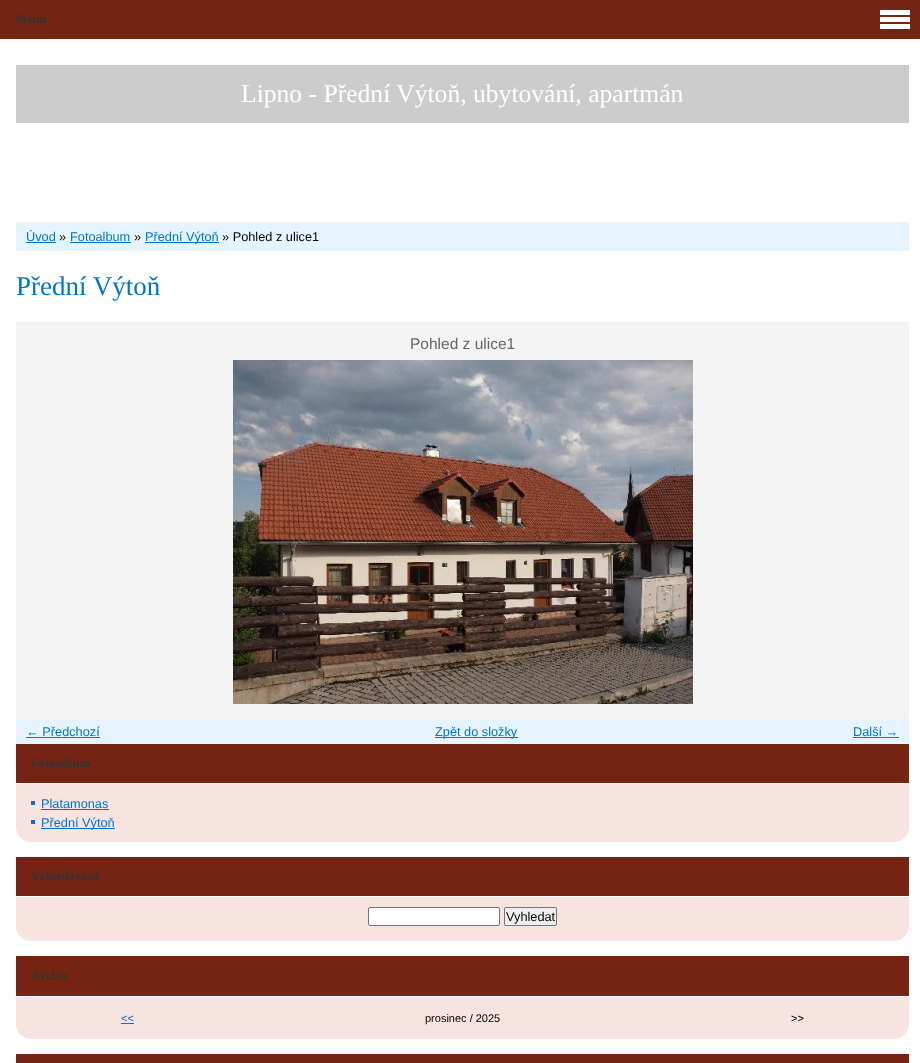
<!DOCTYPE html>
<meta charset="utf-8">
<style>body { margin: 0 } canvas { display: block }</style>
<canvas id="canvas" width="920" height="1063"></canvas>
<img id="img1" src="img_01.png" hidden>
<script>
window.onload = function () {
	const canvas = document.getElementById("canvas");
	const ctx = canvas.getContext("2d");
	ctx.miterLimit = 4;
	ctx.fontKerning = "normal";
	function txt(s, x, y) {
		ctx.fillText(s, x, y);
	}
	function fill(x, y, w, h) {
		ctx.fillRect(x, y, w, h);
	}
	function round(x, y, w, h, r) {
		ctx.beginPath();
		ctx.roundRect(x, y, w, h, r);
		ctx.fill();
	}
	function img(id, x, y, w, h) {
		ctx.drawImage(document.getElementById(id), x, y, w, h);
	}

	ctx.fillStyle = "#FFFFFF";
	fill(0, 0, 920, 1063);
	ctx.fillStyle = "#752413";
	fill(0, 0, 920, 39);
	ctx.fillStyle = "#FFFFFF";
	fill(880, 10, 30, 5);
	fill(880, 17, 30, 5);
	fill(880, 24, 30, 5);
	ctx.fillStyle = "#F7E4E0";
	round(16, 744, 893, 98, 15);
	ctx.fillStyle = "#752413";
	fill(16, 744, 893, 39);
	ctx.fillStyle = "#FFFFFF";
	fill(16, 783, 893, 1);
	ctx.fillStyle = "#0073CB";
	fill(31, 801, 4, 4);
	fill(41, 809, 68, 1);
	fill(31, 820, 4, 4);
	fill(41, 828, 74, 1);
	ctx.fillStyle = "#F7E4E0";
	round(16, 857, 893, 84, 15);
	ctx.fillStyle = "#752413";
	fill(16, 857, 893, 39);
	ctx.fillStyle = "#FFFFFF";
	fill(16, 896, 893, 1);
	ctx.beginPath();
	ctx.roundRect(368.5, 907.5, 131, 18, 1.5);
	ctx.fill();
	ctx.strokeStyle = "#767676";
	ctx.stroke();
	ctx.fillStyle = "#EFEFEF";
	ctx.beginPath();
	ctx.roundRect(504.5, 907.5, 52, 18, 1.5);
	ctx.fill();
	ctx.stroke();
	ctx.fillStyle = "#F7E4E0";
	round(16, 956, 893, 83, 15);
	ctx.fillStyle = "#752413";
	fill(16, 956, 893, 40);
	ctx.fillStyle = "#FFFFFF";
	fill(16, 996, 893, 1);
	ctx.fillStyle = "#0073CB";
	fill(121, 1023, 13, 1);
	ctx.fillStyle = "#752413";
	fill(16, 1054, 893, 9);
	ctx.fillStyle = "#E5F4FF";
	fill(16, 222, 893, 29);
	ctx.fillStyle = "#0073CB";
	fill(26, 242, 30, 1);
	fill(70, 242, 61, 1);
	fill(145, 242, 74, 1);
	ctx.fillStyle = "#F5F4F4";
	fill(16, 322, 893, 397);
	img("img1", 233, 360, 460, 344);
	ctx.fillStyle = "#E5F4FF";
	fill(16, 719, 893, 25);
	ctx.fillStyle = "#0073CB";
	fill(26, 737, 74, 1);
	fill(435, 737, 83, 1);
	fill(853, 737, 46, 1);
	ctx.fillStyle = "#CCCCCC";
	fill(16, 65, 893, 58);
	ctx.font = "bold 12.75px Liberation Serif";
	ctx.fillStyle = "#333333";
	txt("Menu", 15, 23);
	txt("Fotoalbum", 31, 767);
	ctx.font = "12.75px Liberation Sans";
	ctx.fillStyle = "#0073CB";
	txt("Platamonas", 41, 808);
	txt("Přední Výtoň", 41, 827);
	ctx.font = "bold 12.75px Liberation Serif";
	ctx.fillStyle = "#333333";
	txt("Vyhledávání", 31, 880);
	ctx.font = "12.75px Liberation Sans";
	ctx.fillStyle = "#000000";
	txt("Vyhledat", 506, 921);
	ctx.font = "bold 12.75px Liberation Serif";
	ctx.fillStyle = "#333333";
	txt("Archiv", 31, 979);
	ctx.font = "11px Liberation Sans";
	ctx.fillStyle = "#0073CB";
	txt("<<", 121, 1022);
	ctx.fillStyle = "#000000";
	txt("prosinec / 2025", 425, 1022);
	txt(">>", 791, 1022);
	ctx.font = "12.75px Liberation Sans";
	ctx.fillStyle = "#0073CB";
	txt("Úvod", 26, 241);
	ctx.fillStyle = "#000000";
	txt("»", 59, 241);
	ctx.fillStyle = "#0073CB";
	txt("Fotoalbum", 70, 241);
	ctx.fillStyle = "#000000";
	txt("»", 134, 241);
	ctx.fillStyle = "#0073CB";
	txt("Přední Výtoň", 145, 241);
	ctx.fillStyle = "#000000";
	txt("» Pohled z ulice1", 222, 241);
	ctx.font = "27px Liberation Serif";
	ctx.fillStyle = "#0073CB";
	txt("Přední Výtoň", 16, 295);
	ctx.font = "15.5px Liberation Sans";
	ctx.fillStyle = "#666666";
	txt("Pohled z ulice1", 410, 349);
	ctx.font = "12.75px Liberation Sans";
	ctx.fillStyle = "#0073CB";
	txt("← Předchozí", 26, 736);
	txt("Zpět do složky", 435, 736);
	txt("Další →", 853, 736);
	ctx.font = "25.6px Liberation Serif";
	ctx.fillStyle = "#FFFFFF";
	txt("Lipno - Přední Výtoň, ubytování, apartmán", 241, 102);
};
</script>
